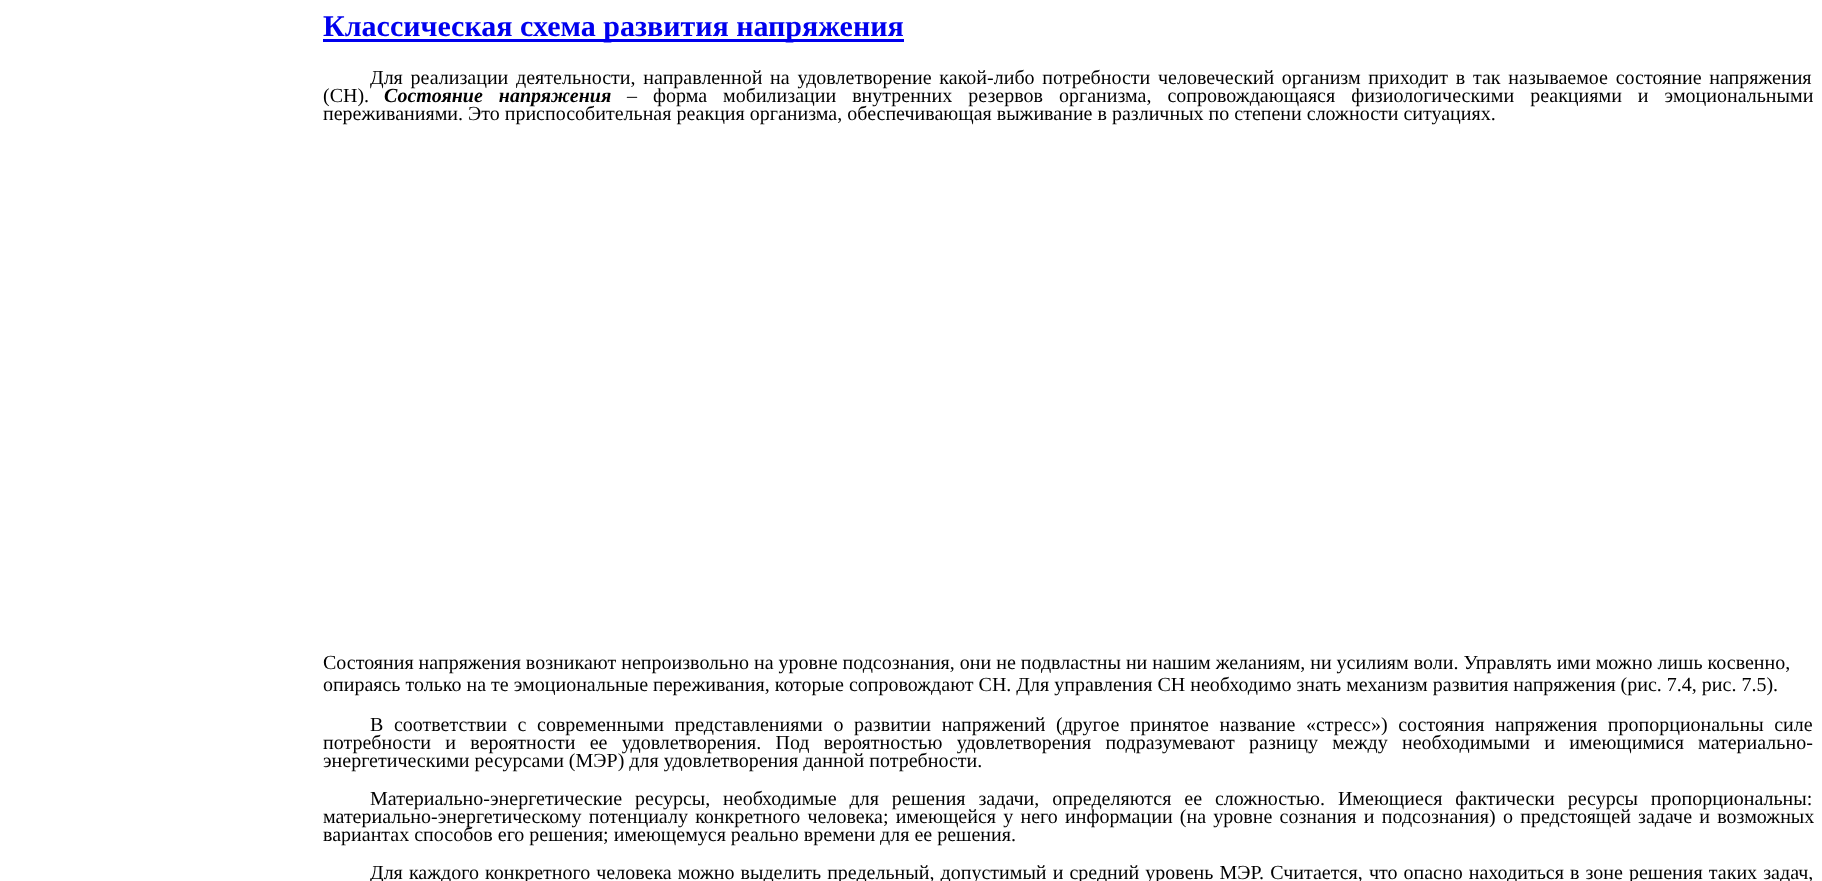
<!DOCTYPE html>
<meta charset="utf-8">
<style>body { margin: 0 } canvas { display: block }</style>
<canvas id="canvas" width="1822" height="881"></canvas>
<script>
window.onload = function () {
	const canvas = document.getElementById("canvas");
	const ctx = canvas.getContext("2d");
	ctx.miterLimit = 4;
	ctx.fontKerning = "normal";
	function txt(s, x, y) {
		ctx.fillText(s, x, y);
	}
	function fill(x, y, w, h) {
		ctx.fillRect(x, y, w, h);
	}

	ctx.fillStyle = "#FFFFFF";
	fill(0, 0, 1822, 881);
	ctx.fillStyle = "#0000EE";
	fill(323, 39, 581, 3);
	ctx.font = "bold 30px Liberation Serif";
	txt("Классическая схема развития напряжения", 323, 36);
	ctx.wordSpacing = "2.75px";
	ctx.font = "20px Liberation Serif";
	ctx.fillStyle = "#000000";
	txt("Для реализации деятельности, направленной на удовлетворение какой-либо потребности человеческий организм приходит в так называемое состояние напряжения", 370, 84);
	ctx.wordSpacing = "0px";
	txt("(СН).", 323, 102);
	ctx.wordSpacing = "11px";
	ctx.font = "italic bold 20px Liberation Serif";
	txt("Состояние напряжения", 384, 102);
	ctx.font = "20px Liberation Serif";
	txt("– форма мобилизации внутренних резервов организма, сопровождающаяся физиологическими реакциями и эмоциональными", 627, 102);
	ctx.wordSpacing = "0px";
	txt("переживаниями. Это приспособительная реакция организма, обеспечивающая выживание в различных по степени сложности ситуациях.", 323, 120);
	txt("Состояния напряжения возникают непроизвольно на уровне подсознания, они не подвластны ни нашим желаниям, ни усилиям воли. Управлять ими можно лишь косвенно,", 323, 669);
	txt("опираясь только на те эмоциональные переживания, которые сопровождают СН. Для управления СН необходимо знать механизм развития напряжения (рис. 7.4, рис. 7.5).", 323, 691);
	ctx.wordSpacing = "5.6px";
	txt("В соответствии с современными представлениями о развитии напряжений (другое принятое название «стресс») состояния напряжения пропорциональны силе", 370, 731);
	ctx.wordSpacing = "9.25px";
	txt("потребности и вероятности ее удовлетворения. Под вероятностью удовлетворения подразумевают разницу между необходимыми и имеющимися материально-", 323, 749);
	ctx.wordSpacing = "0px";
	txt("энергетическими ресурсами (МЭР) для удовлетворения данной потребности.", 323, 767);
	ctx.wordSpacing = "7.9px";
	txt("Материально-энергетические ресурсы, необходимые для решения задачи, определяются ее сложностью. Имеющиеся фактически ресурсы пропорциональны:", 370, 805);
	ctx.wordSpacing = "2.25px";
	txt("материально-энергетическому потенциалу конкретного человека; имеющейся у него информации (на уровне сознания и подсознания) о предстоящей задаче и возможных", 323, 823);
	ctx.wordSpacing = "0px";
	txt("вариантах способов его решения; имеющемуся реально времени для ее решения.", 323, 841);
	ctx.wordSpacing = "1.1px";
	txt("Для каждого конкретного человека можно выделить предельный, допустимый и средний уровень МЭР. Считается, что опасно находиться в зоне решения таких задач,", 370, 879);
};
</script>
